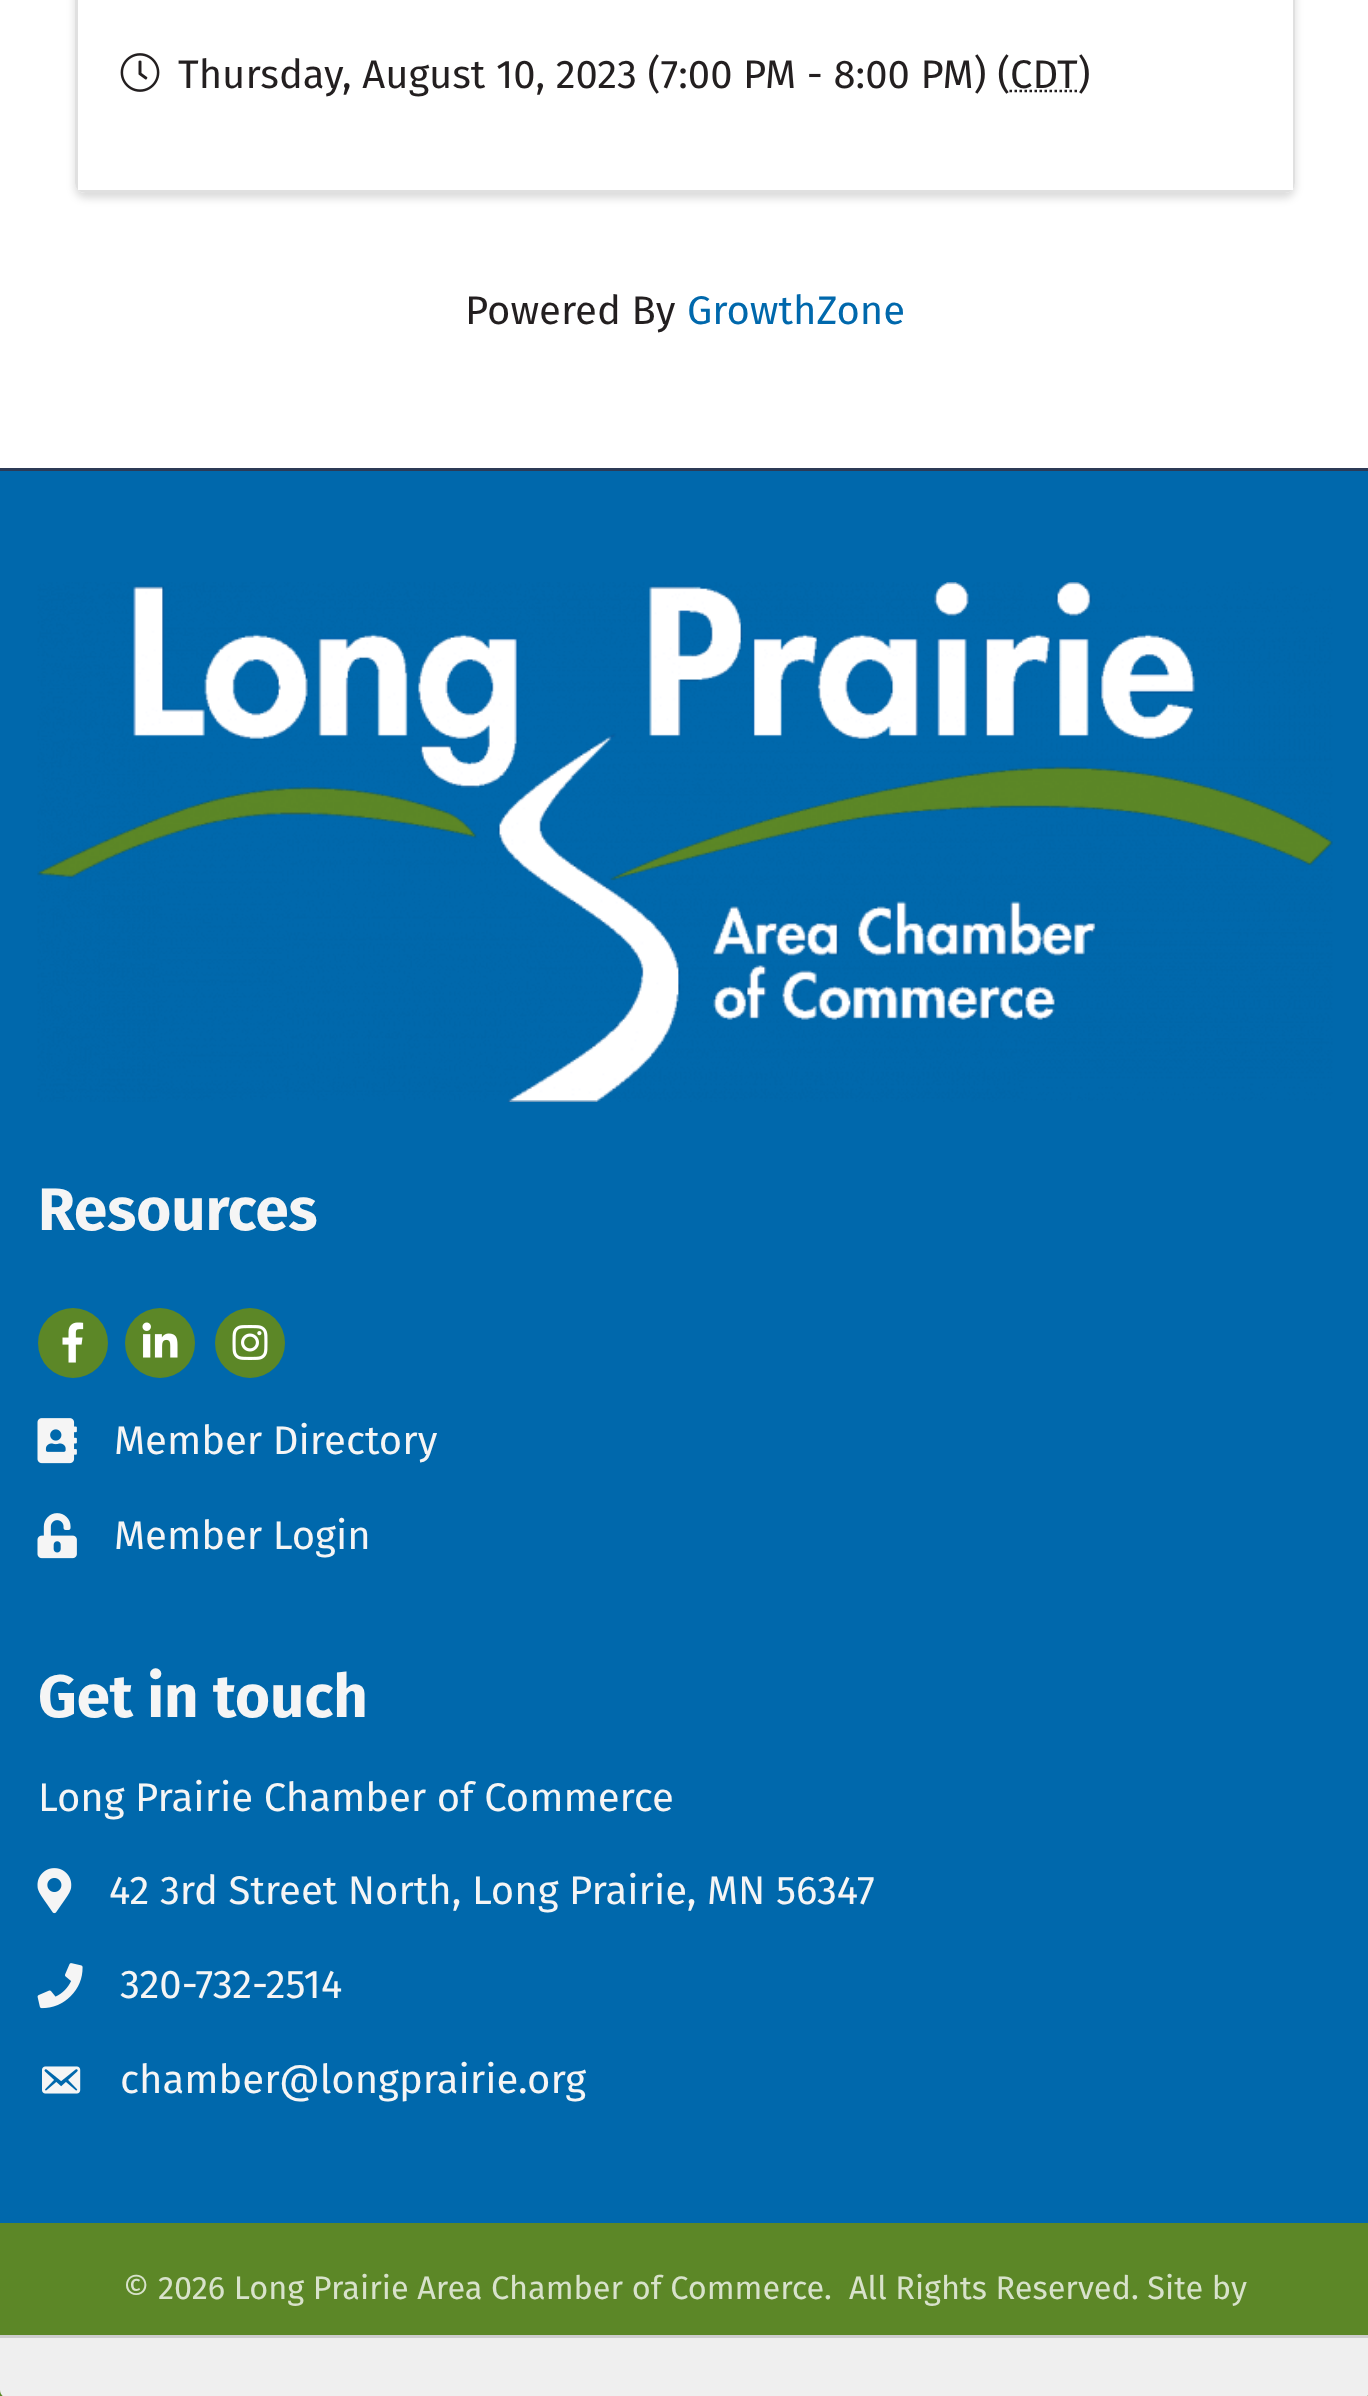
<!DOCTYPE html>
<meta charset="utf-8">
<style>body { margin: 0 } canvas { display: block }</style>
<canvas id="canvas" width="1368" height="2396"></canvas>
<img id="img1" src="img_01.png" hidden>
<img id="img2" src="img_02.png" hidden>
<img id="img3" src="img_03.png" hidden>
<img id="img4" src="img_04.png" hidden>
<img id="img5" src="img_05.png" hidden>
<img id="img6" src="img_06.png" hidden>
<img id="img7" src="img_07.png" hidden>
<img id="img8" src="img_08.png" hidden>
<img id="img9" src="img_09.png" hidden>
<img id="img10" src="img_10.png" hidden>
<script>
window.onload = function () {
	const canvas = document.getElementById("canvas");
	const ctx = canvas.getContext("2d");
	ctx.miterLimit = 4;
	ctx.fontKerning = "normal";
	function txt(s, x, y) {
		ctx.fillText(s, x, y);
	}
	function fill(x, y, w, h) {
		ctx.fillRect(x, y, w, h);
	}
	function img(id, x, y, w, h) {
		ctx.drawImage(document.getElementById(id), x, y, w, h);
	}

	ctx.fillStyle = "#FFFFFF";
	fill(0, 0, 1368, 2396);
	ctx.save();
	ctx.beginPath();
	ctx.moveTo(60, 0);
	ctx.lineTo(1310, 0);
	ctx.lineTo(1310, 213);
	ctx.lineTo(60, 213);
	ctx.closePath();
	ctx.moveTo(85, -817);
	ctx.lineTo(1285, -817);
	ctx.bezierCurveTo(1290.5, -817, 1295, -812.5, 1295, -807);
	ctx.lineTo(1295, 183);
	ctx.bezierCurveTo(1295, 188.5, 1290.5, 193, 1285, 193);
	ctx.lineTo(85, 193);
	ctx.bezierCurveTo(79.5, 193, 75, 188.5, 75, 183);
	ctx.lineTo(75, -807);
	ctx.bezierCurveTo(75, -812.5, 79.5, -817, 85, -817);
	ctx.closePath();
	ctx.clip("evenodd");
	ctx.fillStyle = "rgba(0, 0, 0, 0.15)";
	ctx.filter = "blur(4.5px)";
	ctx.beginPath();
	ctx.roundRect(75, -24, 1220, 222, 10);
	ctx.fill();
	ctx.filter = "none";
	ctx.restore();
	ctx.beginPath();
	ctx.roundRect(76.5, -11.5, 1217, 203, 8.5);
	ctx.strokeStyle = "rgba(0, 0, 0, 0.12)";
	ctx.lineWidth = 3;
	ctx.stroke();
	fill(78, 0, 1215, 190);
	img("img1", 120, 53, 40, 39);
	ctx.beginPath();
	ctx.moveTo(1009.5, 91);
	ctx.lineTo(1077, 91);
	ctx.strokeStyle = "#231F20";
	ctx.lineWidth = 2.5;
	ctx.setLineDash([2.5, 2.5]);
	ctx.stroke();
	ctx.fillStyle = "#5C8727";
	fill(0, 2223, 1368, 173);
	ctx.fillStyle = "#EFEFEF";
	ctx.beginPath();
	ctx.moveTo(0, 2335);
	ctx.lineTo(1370, 2335);
	ctx.lineTo(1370, 2390);
	ctx.bezierCurveTo(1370, 2394.5, 1366.5, 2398, 1362, 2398);
	ctx.lineTo(8, 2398);
	ctx.bezierCurveTo(3.5, 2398, 0, 2394.5, 0, 2390);
	ctx.closePath();
	ctx.fill();
	ctx.fillStyle = "#CDCDCD";
	fill(0, 2335, 1368, 3);
	ctx.fillStyle = "#0068AC";
	fill(0, 471, 1368, 1752);
	ctx.fillStyle = "#2C3A56";
	fill(0, 468, 1368, 3);
	img("img2", 37, 582, 1296, 520);
	ctx.fillStyle = "#5C8727";
	ctx.beginPath();
	ctx.arc(73, 1343, 35, 0, Math.PI * 2);
	ctx.fill();
	img("img3", 62, 1322, 22, 41);
	ctx.beginPath();
	ctx.arc(160, 1343, 35, 0, Math.PI * 2);
	ctx.fill();
	img("img4", 142, 1322, 36, 36);
	ctx.beginPath();
	ctx.arc(250, 1343, 35, 0, Math.PI * 2);
	ctx.fill();
	img("img5", 232, 1325, 36, 35);
	img("img6", 37, 1418, 40, 46);
	img("img7", 37, 1513, 40, 46);
	img("img8", 37, 1868, 35, 46);
	img("img9", 37, 1963, 46, 46);
	img("img10", 42, 2066, 39, 28);
	ctx.font = "40px Fira Sans";
	ctx.fillStyle = "#231F20";
	txt("Thursday, August 10, 2023 (7:00 PM - 8:00 PM) (CDT)", 178, 88);
	txt("Powered By", 465, 324);
	ctx.fillStyle = "#0068AC";
	txt("GrowthZone", 687, 324);
	ctx.font = "bold 60px Fira Sans";
	ctx.fillStyle = "#F5F5F5";
	txt("Resources", 38, 1230);
	ctx.font = "40px Fira Sans";
	txt("Member Directory", 114, 1454);
	txt("Member Login", 114, 1549);
	ctx.font = "bold 60px Fira Sans";
	txt("Get in touch", 38, 1717);
	ctx.font = "40px Fira Sans";
	txt("Long Prairie Chamber of Commerce", 38, 1811);
	txt("42 3rd Street North, Long Prairie, MN 56347", 109, 1904);
	txt("320-732-2514", 120, 1998);
	txt("chamber@longprairie.org", 120, 2093);
	ctx.font = "32.5px Fira Sans";
	ctx.fillStyle = "#D8E2CB";
	txt("© 2026 Long Prairie Area Chamber of Commerce.", 123, 2299);
	txt("All Rights Reserved. Site by", 849, 2299);
};
</script>
